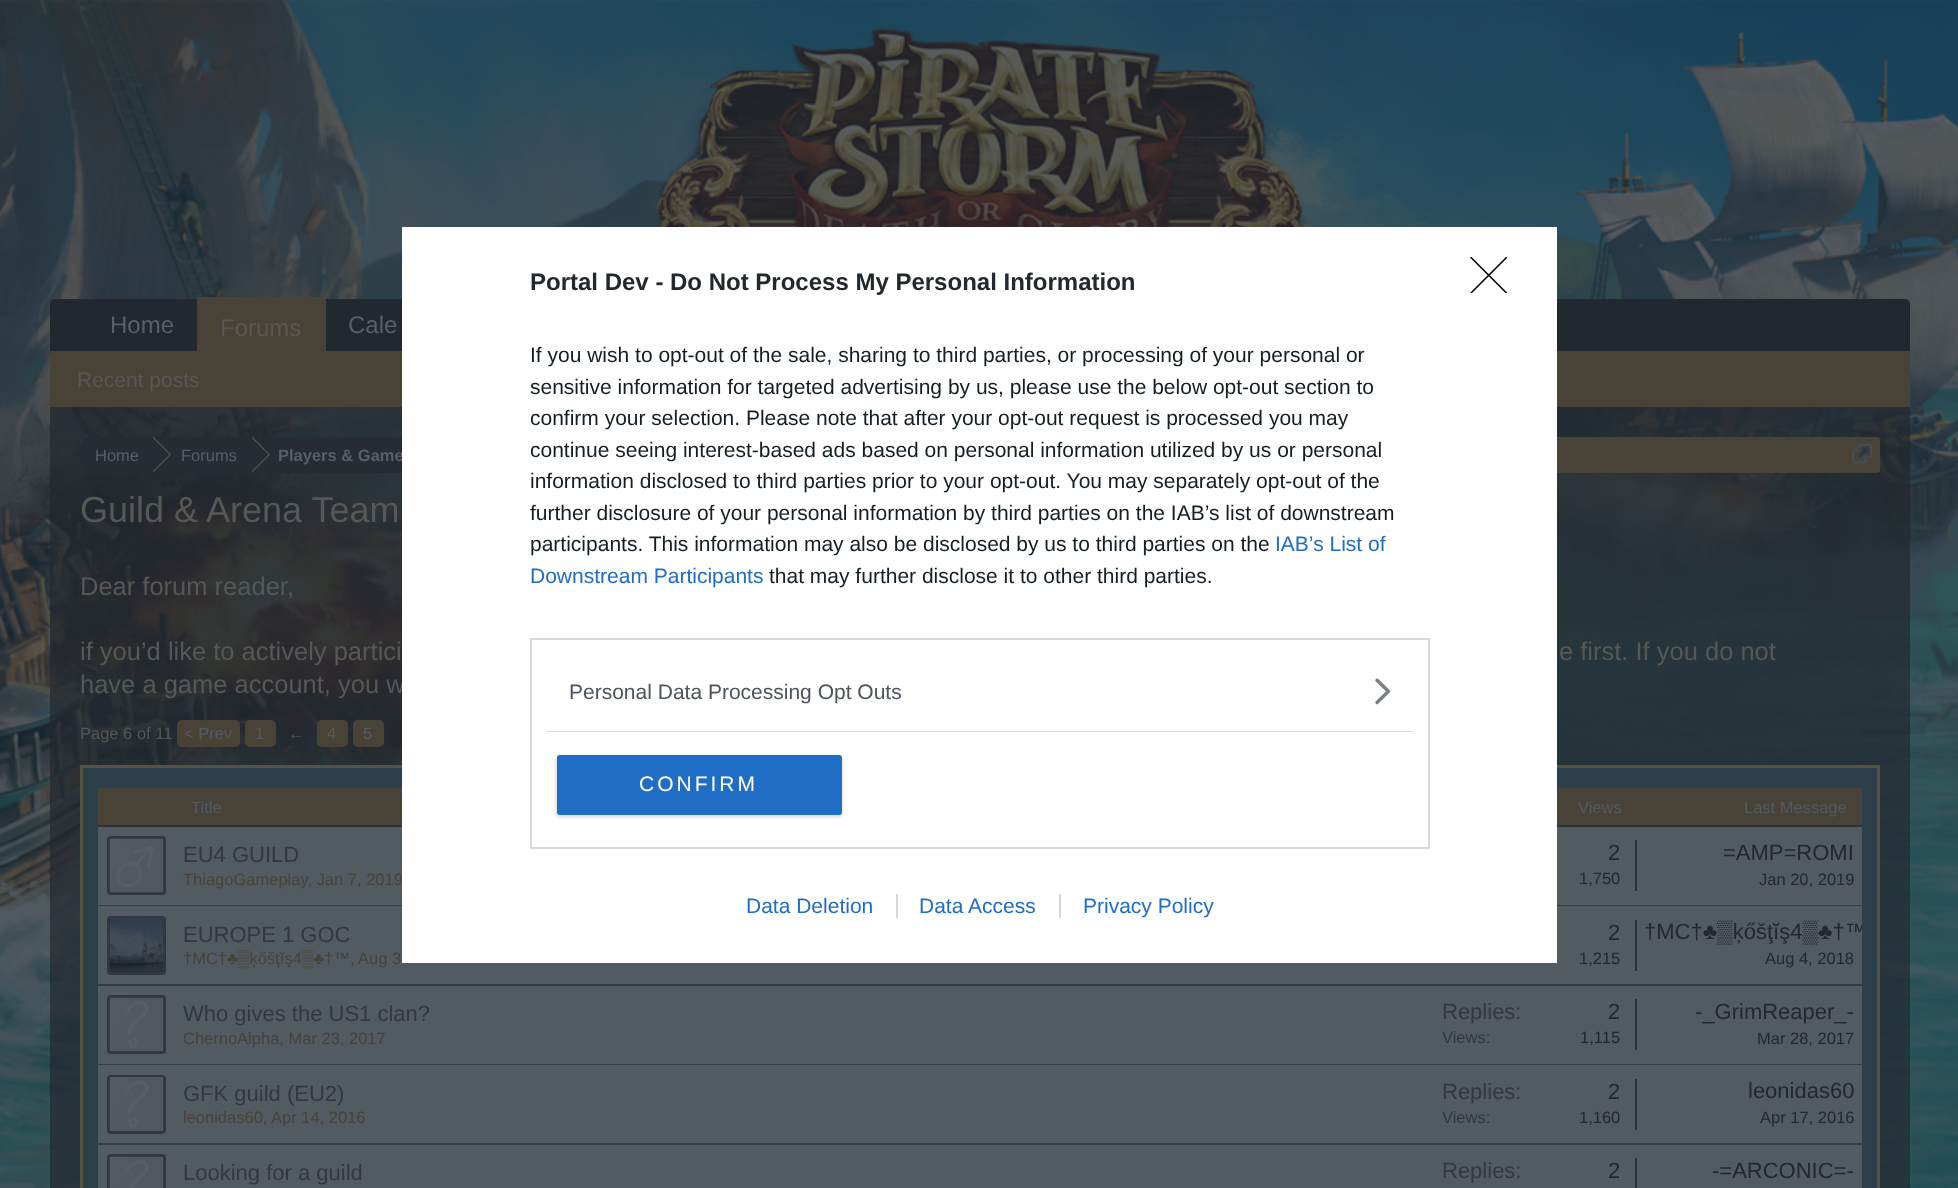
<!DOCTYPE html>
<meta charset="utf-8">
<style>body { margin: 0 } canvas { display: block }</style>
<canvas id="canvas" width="1958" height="1188"></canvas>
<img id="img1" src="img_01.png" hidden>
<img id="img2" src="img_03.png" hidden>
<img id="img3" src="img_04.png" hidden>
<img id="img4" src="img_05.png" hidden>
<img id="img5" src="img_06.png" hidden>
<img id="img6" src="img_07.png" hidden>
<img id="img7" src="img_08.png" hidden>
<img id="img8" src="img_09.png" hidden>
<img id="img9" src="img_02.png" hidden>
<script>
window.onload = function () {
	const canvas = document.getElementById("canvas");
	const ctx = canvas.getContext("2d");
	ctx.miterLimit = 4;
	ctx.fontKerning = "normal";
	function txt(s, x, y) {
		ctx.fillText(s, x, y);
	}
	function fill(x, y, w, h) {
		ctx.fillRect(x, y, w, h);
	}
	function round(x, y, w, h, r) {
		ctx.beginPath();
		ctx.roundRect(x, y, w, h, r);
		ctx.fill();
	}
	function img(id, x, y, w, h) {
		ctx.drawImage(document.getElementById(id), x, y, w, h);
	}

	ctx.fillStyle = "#FFFFFF";
	fill(0, 0, 1958, 1188);
	img("img1", 0, 0, 1958, 1188);
	img("img2", 656, 28, 649, 199);
	ctx.fillStyle = "#22282F";
	ctx.beginPath();
	ctx.roundRect(50, 299, 1860, 55, [5, 5, 0, 0]);
	ctx.fill();
	ctx.fillStyle = "#494337";
	fill(50, 351, 1860, 56);
	ctx.beginPath();
	ctx.roundRect(197, 297, 129, 57, [3, 3, 0, 0]);
	ctx.fill();
	fill(198, 297, 1, 1);
	fill(325, 299, 1, 1);
	fill(197, 299, 1, 1);
	ctx.fillStyle = "rgba(34, 40, 47, 0.7)";
	fill(50, 407, 1860, 781);
	ctx.fillStyle = "#494337";
	ctx.beginPath();
	ctx.roundRect(80, 437, 1800, 36, [8, 3, 3, 8]);
	ctx.fill();
	ctx.save();
	ctx.beginPath();
	ctx.roundRect(80, 437, 1800, 36, [8, 3, 3, 8]);
	ctx.clip();
	ctx.fillStyle = "#262C34";
	ctx.beginPath();
	ctx.roundRect(80, 437, 73, 37, [8, 0, 0, 8]);
	ctx.fill();
	ctx.restore();
	ctx.fillStyle = "#262C34";
	fill(153, 437, 249, 36);
	ctx.fillStyle = "#575855";
	ctx.beginPath();
	ctx.moveTo(153, 472.5);
	ctx.lineTo(153, 436.5);
	ctx.lineTo(171, 454.5);
	ctx.closePath();
	ctx.fill();
	ctx.fillStyle = "#262C34";
	ctx.beginPath();
	ctx.moveTo(151.5, 472.5);
	ctx.lineTo(151.5, 436.5);
	ctx.lineTo(169.5, 454.5);
	ctx.closePath();
	ctx.fill();
	ctx.fillStyle = "#575855";
	ctx.beginPath();
	ctx.moveTo(252, 472.5);
	ctx.lineTo(252, 436.5);
	ctx.lineTo(270, 454.5);
	ctx.closePath();
	ctx.fill();
	ctx.fillStyle = "#262C34";
	ctx.beginPath();
	ctx.moveTo(250.5, 472.5);
	ctx.lineTo(250.5, 436.5);
	ctx.lineTo(268.5, 454.5);
	ctx.closePath();
	ctx.fill();
	img("img3", 1852, 444, 20, 20);
	ctx.fillStyle = "#494337";
	ctx.beginPath();
	ctx.roundRect(178, 721, 61, 25, 4);
	ctx.fill();
	ctx.strokeStyle = "#494337";
	ctx.lineWidth = 2;
	ctx.stroke();
	ctx.beginPath();
	ctx.roundRect(246, 721, 29, 25, 4);
	ctx.fill();
	ctx.stroke();
	ctx.beginPath();
	ctx.roundRect(318, 721, 29, 25, 4);
	ctx.fill();
	ctx.stroke();
	ctx.beginPath();
	ctx.roundRect(354, 721, 29, 25, 4);
	ctx.fill();
	ctx.stroke();
	ctx.fillStyle = "rgba(34, 40, 47, 0.7)";
	round(389, 720, 31, 27, 5);
	ctx.fillStyle = "#2C3F4A";
	ctx.beginPath();
	ctx.rect(81.5, 766.5, 1797, 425);
	ctx.fill();
	ctx.strokeStyle = "#555343";
	ctx.lineWidth = 3;
	ctx.stroke();
	ctx.fillStyle = "#494337";
	fill(98, 788, 1764, 37);
	ctx.fillStyle = "#2C323A";
	fill(98, 825, 1764, 2);
	ctx.fillStyle = "#525A62";
	fill(98, 827, 1764, 78);
	ctx.fillStyle = "#30373F";
	ctx.beginPath();
	ctx.roundRect(106, 835, 61, 61, 5);
	ctx.fill();
	ctx.strokeStyle = "#525A62";
	ctx.lineWidth = 2;
	ctx.stroke();
	img("img4", 109, 838, 55, 55);
	ctx.fillStyle = "#2C323A";
	fill(1635, 840, 2, 51);
	ctx.fillStyle = "#525A62";
	fill(98, 906, 1764, 78);
	ctx.fillStyle = "#30373F";
	ctx.beginPath();
	ctx.roundRect(106, 915, 61, 61, 5);
	ctx.fill();
	ctx.stroke();
	img("img5", 109, 918, 55, 54);
	ctx.fillStyle = "#2C323A";
	fill(1635, 920, 2, 51);
	ctx.fillStyle = "#525A62";
	fill(98, 986, 1764, 78);
	ctx.fillStyle = "#30373F";
	ctx.beginPath();
	ctx.roundRect(106, 994, 61, 61, 5);
	ctx.fill();
	ctx.stroke();
	img("img6", 109, 997, 55, 55);
	ctx.fillStyle = "#2C323A";
	fill(1635, 999, 2, 51);
	ctx.fillStyle = "#525A62";
	fill(98, 1065, 1764, 78);
	ctx.fillStyle = "#30373F";
	ctx.beginPath();
	ctx.roundRect(106, 1074, 61, 61, 5);
	ctx.fill();
	ctx.stroke();
	img("img7", 109, 1077, 55, 54);
	ctx.fillStyle = "#2C323A";
	fill(1635, 1079, 2, 51);
	ctx.fillStyle = "#525A62";
	fill(98, 1145, 1764, 43);
	ctx.fillStyle = "#30373F";
	ctx.beginPath();
	ctx.roundRect(106, 1153, 61, 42, 5);
	ctx.fill();
	ctx.stroke();
	img("img8", 109, 1156, 55, 32);
	ctx.fillStyle = "#2C323A";
	fill(1635, 1158, 2, 30);
	ctx.font = "24px Liberation Sans";
	ctx.fillStyle = "#595F67";
	txt("Home", 110, 333);
	txt("Cale", 348, 333);
	ctx.fillStyle = "#575855";
	txt("Forums", 220, 336);
	ctx.font = "21px Liberation Sans";
	txt("Recent posts", 77, 387);
	ctx.font = "16.5px Liberation Sans";
	ctx.fillStyle = "#595F67";
	txt("Home", 95, 461);
	txt("Forums", 181, 461);
	ctx.font = "bold 16.5px Liberation Sans";
	txt("Players & Game", 278, 461);
	ctx.font = "36px Liberation Sans";
	ctx.fillStyle = "#575855";
	txt("Guild & Arena Team", 80, 522);
	ctx.font = "25.5px Liberation Sans";
	txt("Dear forum reader,", 80, 595);
	txt("if you’d like to actively partici", 80, 660);
	txt("e first. If you do not", 1559, 660);
	txt("have a game account, you w", 80, 693);
	ctx.font = "16.5px Liberation Sans";
	txt("Page 6 of 11", 80, 739);
	ctx.fillStyle = "#525A62";
	txt("< Prev", 184, 739);
	txt("1", 255, 739);
	ctx.fillStyle = "#575855";
	txt("←", 288, 739);
	ctx.fillStyle = "#525A62";
	txt("4", 327, 739);
	txt("5", 363, 739);
	txt("Title", 191, 813);
	txt("Views", 1578, 813);
	txt("Last Message", 1744, 813);
	ctx.font = "22px Liberation Sans";
	ctx.fillStyle = "#323841";
	txt("EU4 GUILD", 183, 862);
	ctx.font = "16.5px Liberation Sans";
	ctx.fillStyle = "#494337";
	txt("ThiagoGameplay, Jan 7, 2019", 183, 885);
	ctx.fillStyle = "#FFFFFF";
	fill(402, 227, 1155, 736);
	ctx.strokeStyle = "#D8D8D8";
	ctx.strokeRect(531, 639, 898, 209);
	img("img9", 1375, 678, 16, 27);
	ctx.save();
	ctx.beginPath();
	ctx.rect(1470, 257, 38, 36);
	ctx.clip();
	ctx.beginPath();
	ctx.moveTo(1471, 257.5);
	ctx.lineTo(1506.5, 293);
	ctx.moveTo(1506.5, 257.5);
	ctx.lineTo(1471, 293);
	ctx.strokeStyle = "#000000";
	ctx.lineWidth = 1.5;
	ctx.lineCap = "round";
	ctx.lineJoin = "round";
	ctx.stroke();
	ctx.restore();
	ctx.fillStyle = "rgba(0, 0, 0, 0.1)";
	ctx.filter = "blur(1px)";
	ctx.beginPath();
	ctx.roundRect(555, 755, 288, 63, 5);
	ctx.fill();
	ctx.filter = "none";
	ctx.fillStyle = "#206DC5";
	round(557, 755, 285, 60, 3);
	ctx.letterSpacing = "3px";
	ctx.font = "21px Liberation Sans";
	ctx.fillStyle = "#FFFFFF";
	txt("CONFIRM", 639, 791);
	ctx.letterSpacing = "0px";
	ctx.fillStyle = "#4D545D";
	txt("Personal Data Processing Opt Outs", 569, 699);
	ctx.fillStyle = "#D8D8D8";
	fill(546, 731, 867, 1);
	ctx.fillStyle = "#141E23";
	txt("that may further disclose it to other third parties.", 769, 583);
	ctx.fillStyle = "#206DC5";
	txt("Downstream Participants", 530, 583);
	txt("IAB’s List of", 1275, 551);
	ctx.fillStyle = "#141E23";
	txt("participants. This information may also be disclosed by us to third parties on the", 530, 551);
	txt("further disclosure of your personal information by third parties on the IAB’s list of downstream", 530, 520);
	txt("information disclosed to third parties prior to your opt-out. You may separately opt-out of the", 530, 488);
	txt("continue seeing interest-based ads based on personal information utilized by us or personal", 530, 457);
	txt("confirm your selection. Please note that after your opt-out request is processed you may", 530, 425);
	txt("sensitive information for targeted advertising by us, please use the below opt-out section to", 530, 394);
	txt("If you wish to opt-out of the sale, sharing to third parties, or processing of your personal or", 530, 362);
	ctx.fillStyle = "#206DC5";
	txt("Privacy Policy", 1083, 913);
	ctx.fillStyle = "#D8D8D8";
	fill(1059, 894, 2, 24);
	ctx.fillStyle = "#206DC5";
	txt("Data Access", 919, 913);
	ctx.fillStyle = "#D8D8D8";
	fill(896, 894, 2, 24);
	ctx.fillStyle = "#206DC5";
	txt("Data Deletion", 746, 913);
	ctx.font = "bold 24px Liberation Sans";
	ctx.fillStyle = "#22282F";
	txt("Portal Dev - Do Not Process My Personal Information", 530, 290);
	ctx.font = "22px Liberation Sans";
	txt("2", 1608, 860);
	ctx.font = "16.5px Liberation Sans";
	txt("1,750", 1579, 884);
	ctx.font = "22px Liberation Sans";
	txt("=AMP=ROMI", 1723, 860);
	ctx.font = "16.5px Liberation Sans";
	txt("Jan 20, 2019", 1759, 885);
	ctx.font = "22px Liberation Sans";
	ctx.fillStyle = "#323841";
	txt("EUROPE 1 GOC", 183, 942);
	ctx.font = "16.5px Liberation Sans";
	ctx.fillStyle = "#494337";
	txt("†MC†♣▒ķőšţĭş4▒♣†™,", 183, 964);
	txt("Aug 3", 358, 964);
	ctx.font = "22px Liberation Sans";
	ctx.fillStyle = "#22282F";
	txt("2", 1608, 940);
	ctx.font = "16.5px Liberation Sans";
	txt("1,215", 1579, 964);
	ctx.save();
	ctx.beginPath();
	ctx.rect(1637, 906, 225, 78);
	ctx.clip();
	ctx.font = "22px Liberation Sans";
	txt("†MC†♣▒ķőšţĭş4▒♣†™", 1644, 939);
	ctx.restore();
	txt("Aug 4, 2018", 1765, 964);
	ctx.font = "22px Liberation Sans";
	ctx.fillStyle = "#323841";
	txt("Who gives the US1 clan?", 183, 1021);
	ctx.font = "16.5px Liberation Sans";
	ctx.fillStyle = "#494337";
	txt("ChernoAlpha, Mar 23, 2017", 183, 1044);
	ctx.font = "22px Liberation Sans";
	ctx.fillStyle = "#323841";
	txt("Replies:", 1442, 1019);
	ctx.fillStyle = "#22282F";
	txt("2", 1608, 1019);
	ctx.font = "16.5px Liberation Sans";
	ctx.fillStyle = "#323841";
	txt("Views:", 1442, 1043);
	ctx.fillStyle = "#22282F";
	txt("1,115", 1580, 1043);
	ctx.font = "22px Liberation Sans";
	txt("-_GrimReaper_-", 1695, 1019);
	ctx.font = "16.5px Liberation Sans";
	txt("Mar 28, 2017", 1757, 1044);
	ctx.font = "22px Liberation Sans";
	ctx.fillStyle = "#323841";
	txt("GFK guild (EU2)", 183, 1101);
	ctx.font = "16.5px Liberation Sans";
	ctx.fillStyle = "#494337";
	txt("leonidas60,", 183, 1123);
	txt("Apr 14, 2016", 271, 1123);
	ctx.font = "22px Liberation Sans";
	ctx.fillStyle = "#323841";
	txt("Replies:", 1442, 1099);
	ctx.fillStyle = "#22282F";
	txt("2", 1608, 1099);
	ctx.font = "16.5px Liberation Sans";
	ctx.fillStyle = "#323841";
	txt("Views:", 1442, 1123);
	ctx.fillStyle = "#22282F";
	txt("1,160", 1579, 1123);
	ctx.font = "22px Liberation Sans";
	txt("leonidas60", 1748, 1098);
	ctx.font = "16.5px Liberation Sans";
	txt("Apr 17, 2016", 1760, 1123);
	ctx.font = "22px Liberation Sans";
	ctx.fillStyle = "#323841";
	txt("Looking for a guild", 183, 1180);
	txt("Replies:", 1442, 1178);
	ctx.fillStyle = "#22282F";
	txt("2", 1608, 1178);
	txt("-=ARCONIC=-", 1712, 1178);
};
</script>
